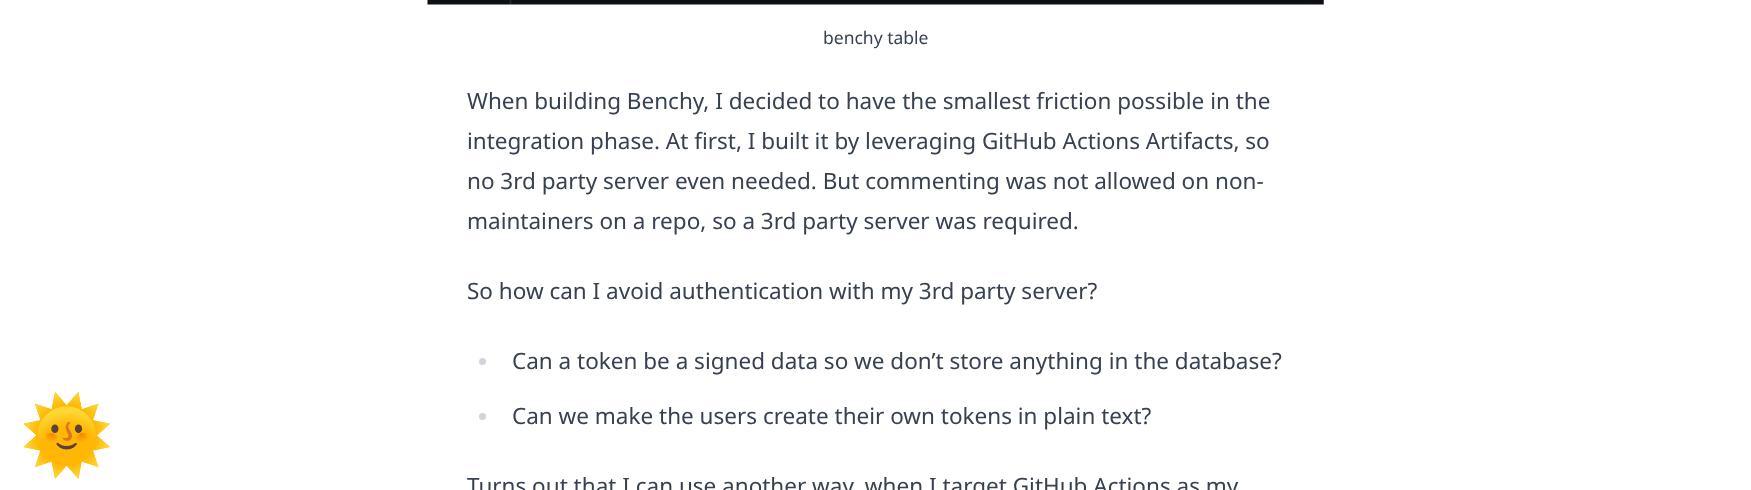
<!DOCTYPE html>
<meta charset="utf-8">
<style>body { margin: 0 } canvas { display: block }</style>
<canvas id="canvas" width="1751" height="490"></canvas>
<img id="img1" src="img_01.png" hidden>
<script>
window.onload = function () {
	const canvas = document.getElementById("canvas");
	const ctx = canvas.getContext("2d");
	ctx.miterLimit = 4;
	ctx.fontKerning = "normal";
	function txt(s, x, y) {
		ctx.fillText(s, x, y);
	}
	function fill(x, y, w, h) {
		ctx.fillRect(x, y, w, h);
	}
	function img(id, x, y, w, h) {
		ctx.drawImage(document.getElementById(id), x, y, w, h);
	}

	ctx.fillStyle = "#FFFFFF";
	fill(0, 0, 1751, 490);
	img("img1", 427, 0, 897, 5);
	ctx.fillStyle = "#D1D5DB";
	ctx.beginPath();
	ctx.arc(482.5, 361.5, 3.5, 0, Math.PI * 2);
	ctx.fill();
	ctx.beginPath();
	ctx.arc(482.5, 416.5, 3.5, 0, Math.PI * 2);
	ctx.fill();
	ctx.font = "75px Noto Color Emoji";
	ctx.fillStyle = "#000000";
	txt("🌞", 20, 461);
	ctx.font = "17.5px Noto Sans";
	ctx.fillStyle = "#374151";
	txt("benchy table", 823, 44);
	ctx.font = "22.5px Noto Sans";
	txt("When building Benchy, I decided to have the smallest friction possible in the", 467, 109);
	txt("integration phase. At first, I built it by leveraging GitHub Actions Artifacts, so", 467, 149);
	txt("no 3rd party server even needed. But commenting was not allowed on non-", 467, 189);
	txt("maintainers on a repo, so a 3rd party server was required.", 467, 229);
	txt("So how can I avoid authentication with my 3rd party server?", 467, 299);
	txt("Can a token be a signed data so we don’t store anything in the database?", 512, 369);
	txt("Can we make the users create their own tokens in plain text?", 512, 424);
	txt("Turns out that I can use another way, when I target GitHub Actions as my", 467, 494);
};
</script>
